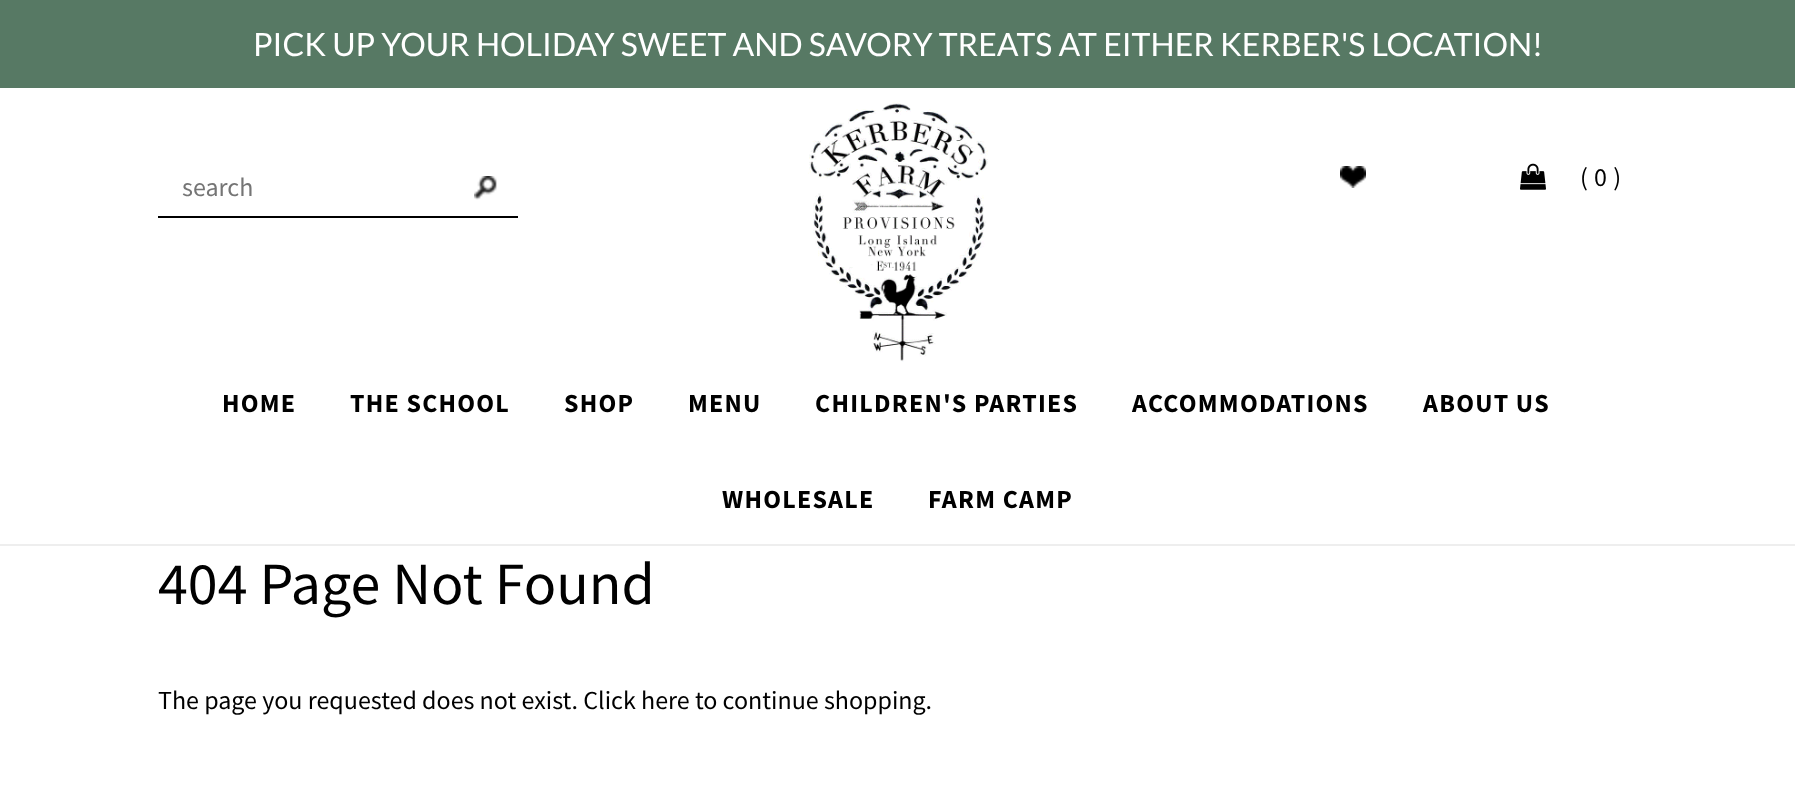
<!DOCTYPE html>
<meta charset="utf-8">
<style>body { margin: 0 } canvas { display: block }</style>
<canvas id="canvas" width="1795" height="804"></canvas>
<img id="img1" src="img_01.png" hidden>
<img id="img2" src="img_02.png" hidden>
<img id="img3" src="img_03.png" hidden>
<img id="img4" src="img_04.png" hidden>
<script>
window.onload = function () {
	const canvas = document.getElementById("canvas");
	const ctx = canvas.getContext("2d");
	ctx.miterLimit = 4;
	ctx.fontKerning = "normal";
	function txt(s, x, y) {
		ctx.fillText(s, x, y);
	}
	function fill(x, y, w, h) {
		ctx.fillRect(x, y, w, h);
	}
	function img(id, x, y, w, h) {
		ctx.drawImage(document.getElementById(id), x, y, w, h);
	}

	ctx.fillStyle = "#FFFFFF";
	fill(0, 0, 1795, 804);
	ctx.fillStyle = "#577964";
	fill(0, 0, 1795, 88);
	ctx.fillStyle = "#EEEEEE";
	fill(0, 544, 1795, 2);
	img("img1", 808, 101, 180, 261);
	ctx.fillStyle = "#000000";
	fill(158, 216, 360, 2);
	img("img2", 474, 176, 23, 24);
	img("img3", 1340, 166, 26, 22);
	img("img4", 1520, 163, 26, 27);
	ctx.font = "32px Lato";
	ctx.fillStyle = "#FFFFFF";
	txt("PICK UP YOUR HOLIDAY SWEET AND SAVORY TREATS AT EITHER KERBER'S LOCATION!", 253, 56);
	ctx.font = "26px Source Sans Pro";
	ctx.fillStyle = "#757575";
	txt("search", 182, 196);
	ctx.letterSpacing = "0.5px";
	ctx.fillStyle = "#000000";
	txt("( 0 )", 1580, 186);
	ctx.letterSpacing = "1.25px";
	ctx.font = "bold 26px Source Sans Pro";
	txt("HOME", 222, 412);
	txt("THE SCHOOL", 350, 412);
	txt("SHOP", 564, 412);
	txt("MENU", 688, 412);
	txt("CHILDREN'S PARTIES", 815, 412);
	txt("ACCOMMODATIONS", 1132, 412);
	txt("ABOUT US", 1423, 412);
	txt("WHOLESALE", 722, 508);
	txt("FARM CAMP", 928, 508);
	ctx.letterSpacing = "0px";
	ctx.font = "60px Source Sans Pro";
	txt("404 Page Not Found", 158, 604);
	ctx.font = "26px Source Sans Pro";
	txt("The page you requested does not exist. Click here to continue shopping.", 158, 709);
};
</script>
